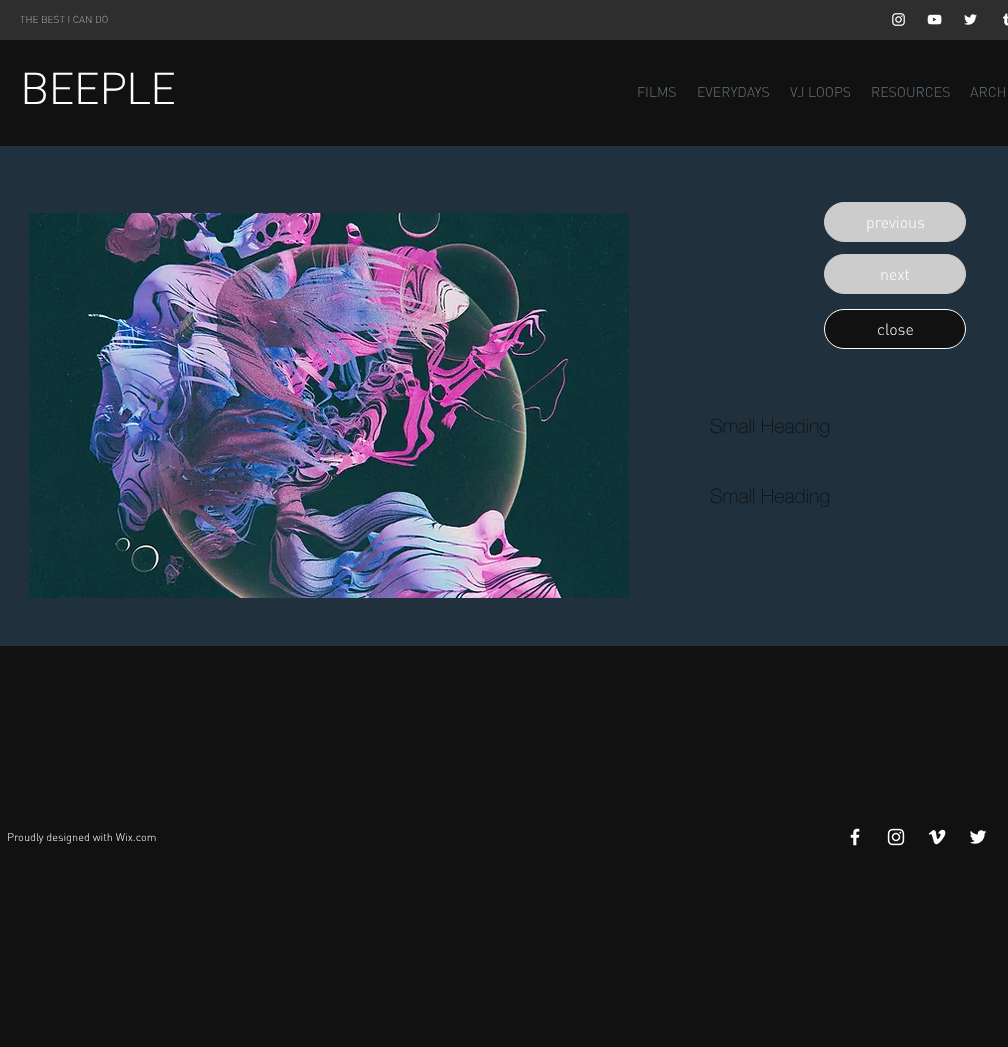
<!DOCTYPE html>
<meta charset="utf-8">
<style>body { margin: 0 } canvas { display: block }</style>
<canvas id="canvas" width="1008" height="1047"></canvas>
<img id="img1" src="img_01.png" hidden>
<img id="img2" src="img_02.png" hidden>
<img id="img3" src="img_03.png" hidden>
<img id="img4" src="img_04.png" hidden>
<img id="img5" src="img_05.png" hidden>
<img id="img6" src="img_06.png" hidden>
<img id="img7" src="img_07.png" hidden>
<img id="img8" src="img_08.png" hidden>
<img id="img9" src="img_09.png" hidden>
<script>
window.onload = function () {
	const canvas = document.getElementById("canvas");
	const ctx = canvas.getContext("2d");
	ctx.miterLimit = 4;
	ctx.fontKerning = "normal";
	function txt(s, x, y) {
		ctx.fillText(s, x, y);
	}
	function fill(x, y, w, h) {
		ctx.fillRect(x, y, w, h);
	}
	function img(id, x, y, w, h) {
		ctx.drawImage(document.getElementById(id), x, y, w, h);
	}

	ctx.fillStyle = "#111111";
	fill(0, 0, 1008, 1047);
	ctx.fillStyle = "#2F2E2E";
	fill(0, 0, 1008, 40);
	img("img1", 892, 13, 13, 13);
	img("img2", 927, 14, 15, 11);
	img("img3", 964, 14, 13, 11);
	img("img4", 1003, 13, 5, 13);
	ctx.fillStyle = "#20303C";
	fill(0, 146, 1008, 500);
	img("img5", 29, 213, 600, 385);
	ctx.fillStyle = "#CCCCCC";
	ctx.beginPath();
	ctx.roundRect(824.5, 202.5, 141, 39, 19.5);
	ctx.fill();
	ctx.strokeStyle = "#CCCCCC";
	ctx.stroke();
	ctx.beginPath();
	ctx.roundRect(824.5, 254.5, 141, 39, 19.5);
	ctx.fill();
	ctx.stroke();
	ctx.fillStyle = "#111111";
	ctx.beginPath();
	ctx.roundRect(824.5, 309.5, 141, 39, 19.5);
	ctx.fill();
	ctx.strokeStyle = "#FFFFFF";
	ctx.stroke();
	img("img6", 850, 828, 10, 18);
	img("img7", 887, 828, 18, 18);
	img("img8", 928, 829, 18, 16);
	img("img9", 970, 830, 17, 14);
	ctx.font = "300 10px DIN";
	ctx.fillStyle = "#A3ABB0";
	txt("THE BEST I CAN DO", 20, 23);
	ctx.letterSpacing = "-1px";
	ctx.font = "300 44px DIN";
	ctx.fillStyle = "#FFFFFF";
	txt("BEEPLE", 20, 104);
	ctx.letterSpacing = "0px";
	ctx.font = "300 14px DIN";
	ctx.fillStyle = "#66737C";
	txt("FILMS", 637, 97);
	txt("EVERYDAYS", 697, 97);
	txt("VJ LOOPS", 790, 97);
	txt("RESOURCES", 871, 97);
	txt("ARCH", 970, 97);
	ctx.font = "300 16px DIN";
	ctx.fillStyle = "#FFFFFF";
	txt("previous", 866, 228);
	txt("next", 880, 280);
	txt("close", 877, 335);
	ctx.font = "100 20px 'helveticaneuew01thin'";
	ctx.fillStyle = "#111111";
	txt("Small Heading", 710, 433);
	txt("Small Heading", 710, 503);
	ctx.font = "300 11px DIN";
	ctx.fillStyle = "#FFFFFF";
	txt("Proudly designed with Wix.com", 7, 841);
};
</script>
